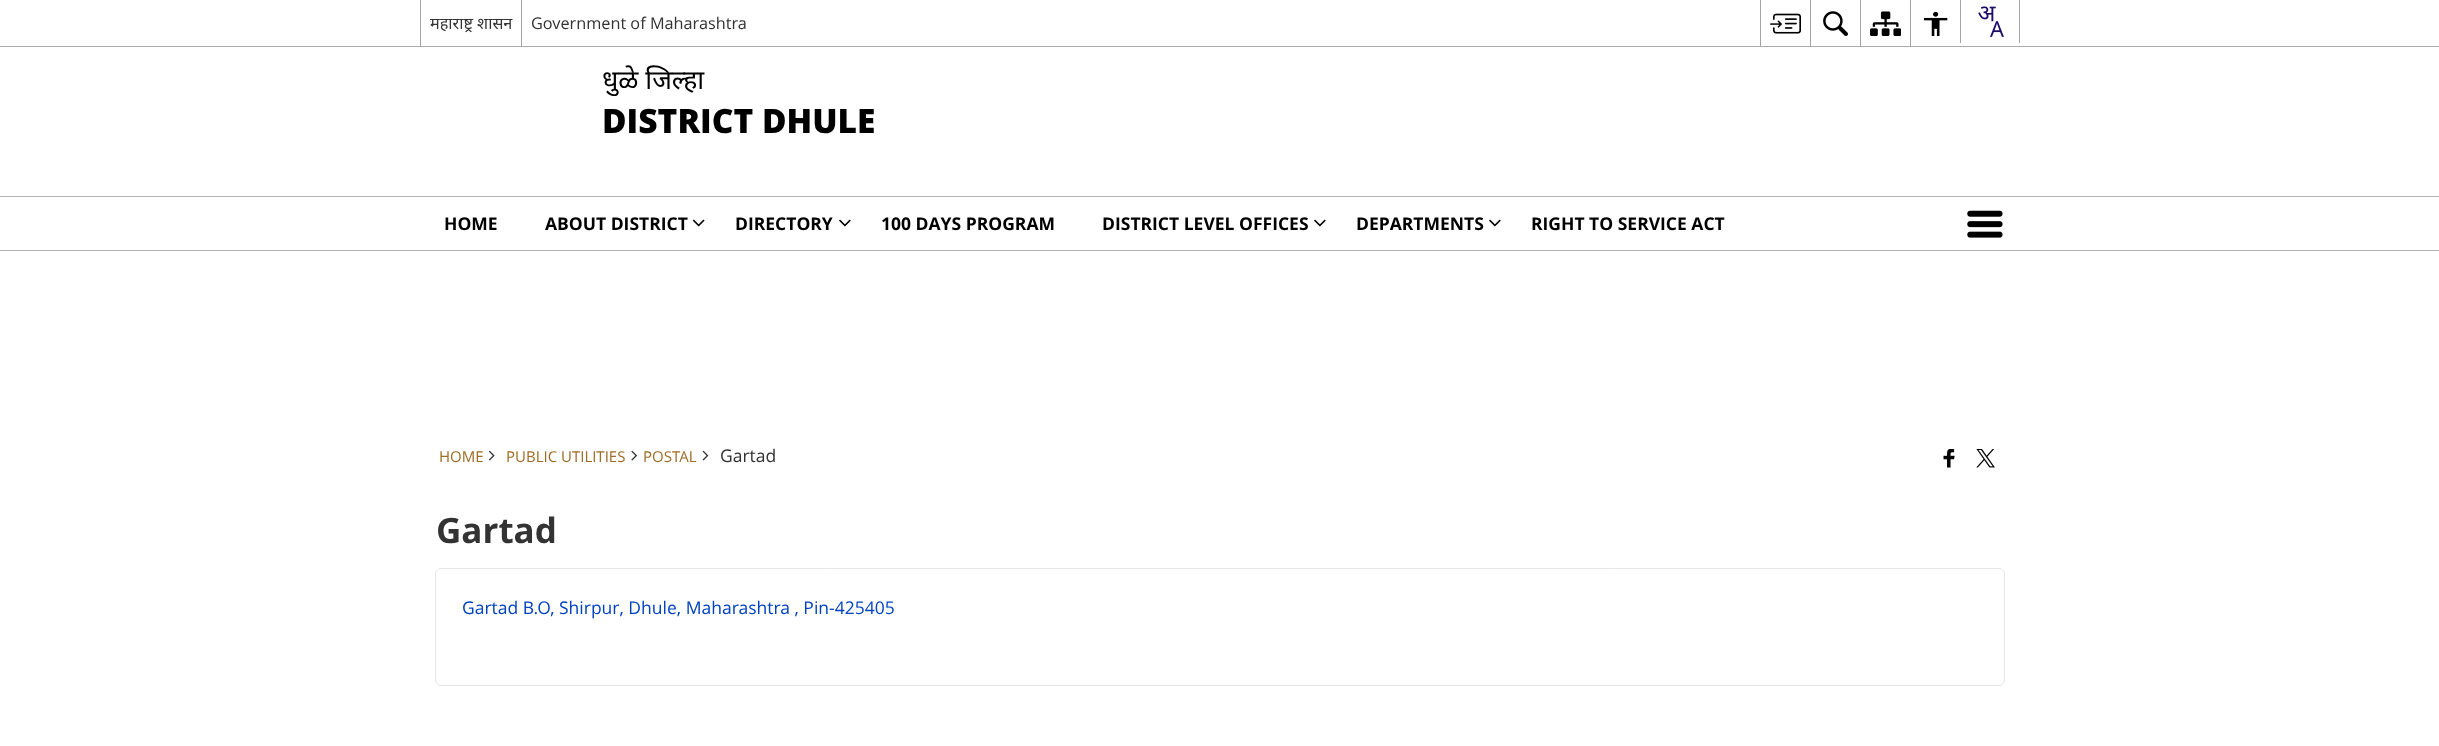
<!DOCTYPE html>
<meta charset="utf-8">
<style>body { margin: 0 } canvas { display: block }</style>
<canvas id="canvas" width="2439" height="746"></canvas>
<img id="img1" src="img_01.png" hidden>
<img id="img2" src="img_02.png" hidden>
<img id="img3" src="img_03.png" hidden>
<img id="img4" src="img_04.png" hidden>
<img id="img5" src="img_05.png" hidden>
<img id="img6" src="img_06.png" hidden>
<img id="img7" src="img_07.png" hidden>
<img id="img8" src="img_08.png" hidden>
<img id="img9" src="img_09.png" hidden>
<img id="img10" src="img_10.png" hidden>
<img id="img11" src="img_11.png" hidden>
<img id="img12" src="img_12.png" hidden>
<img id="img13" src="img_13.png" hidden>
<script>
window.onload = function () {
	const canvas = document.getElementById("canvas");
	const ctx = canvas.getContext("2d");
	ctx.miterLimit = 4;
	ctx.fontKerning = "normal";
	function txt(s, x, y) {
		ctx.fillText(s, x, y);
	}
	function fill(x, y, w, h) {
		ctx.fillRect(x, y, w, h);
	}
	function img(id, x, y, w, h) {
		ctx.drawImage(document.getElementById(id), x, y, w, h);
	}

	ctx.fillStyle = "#FFFFFF";
	fill(0, 0, 2439, 746);
	ctx.fillStyle = "#ABABAB";
	fill(0, 46, 2439, 1);
	ctx.fillStyle = "#A3A3A3";
	fill(420, 0, 1, 46);
	fill(521, 0, 1, 46);
	fill(1760, 0, 1, 46);
	img("img1", 1770, 13, 31, 21);
	fill(1810, 0, 1, 46);
	img("img2", 1823, 11, 25, 25);
	fill(1860, 0, 1, 46);
	img("img3", 1870, 11, 31, 25);
	fill(1910, 0, 1, 46);
	img("img4", 1923, 11, 25, 25);
	fill(2019, 0, 1, 43);
	fill(1960, 0, 1, 43);
	img("img5", 1978, 6, 26, 31);
	ctx.fillStyle = "#B3B3B3";
	fill(0, 196, 2439, 1);
	fill(0, 250, 2439, 1);
	img("img6", 692, 219, 13, 8);
	img("img7", 839, 219, 12, 8);
	img("img7", 1314, 219, 12, 8);
	img("img7", 1489, 219, 12, 8);
	img("img8", 1967, 210, 36, 28);
	img("img9", 488, 450, 7, 11);
	img("img10", 631, 450, 6, 11);
	img("img11", 702, 450, 7, 11);
	img("img12", 1943, 449, 12, 19);
	img("img13", 1976, 449, 19, 19);
	ctx.beginPath();
	ctx.roundRect(435.5, 568.5, 1569, 117, 5.5);
	ctx.strokeStyle = "#E6E6E6";
	ctx.stroke();
	ctx.font = "16.25px Noto Sans";
	ctx.fillStyle = "#333333";
	txt("महाराष्ट्र शासन", 430, 29);
	ctx.font = "16.25px Open Sans";
	txt("Government of Maharashtra", 531, 29);
	ctx.font = "26.5px Noto Sans";
	ctx.fillStyle = "#000000";
	txt("धुळे जिल्हा", 602, 89);
	ctx.font = "800 33.5px Open Sans";
	txt("DISTRICT DHULE", 602, 133);
	ctx.font = "bold 17.5px Open Sans";
	txt("HOME", 444, 230);
	txt("ABOUT DISTRICT", 545, 230);
	txt("DIRECTORY", 735, 230);
	txt("100 DAYS PROGRAM", 881, 230);
	txt("DISTRICT LEVEL OFFICES", 1102, 230);
	txt("DEPARTMENTS", 1356, 230);
	txt("RIGHT TO SERVICE ACT", 1531, 230);
	ctx.font = "15px Open Sans";
	ctx.fillStyle = "#9E6B22";
	txt("HOME", 439, 462);
	txt("PUBLIC UTILITIES", 506, 462);
	txt("POSTAL", 643, 462);
	ctx.font = "17.5px Open Sans";
	ctx.fillStyle = "#333333";
	txt("Gartad", 720, 462);
	ctx.font = "bold 35px Open Sans";
	txt("Gartad", 436, 543);
	ctx.font = "17.5px Open Sans";
	ctx.fillStyle = "#0042BF";
	txt("Gartad B.O, Shirpur, Dhule, Maharashtra , Pin-425405", 462, 614);
};
</script>
